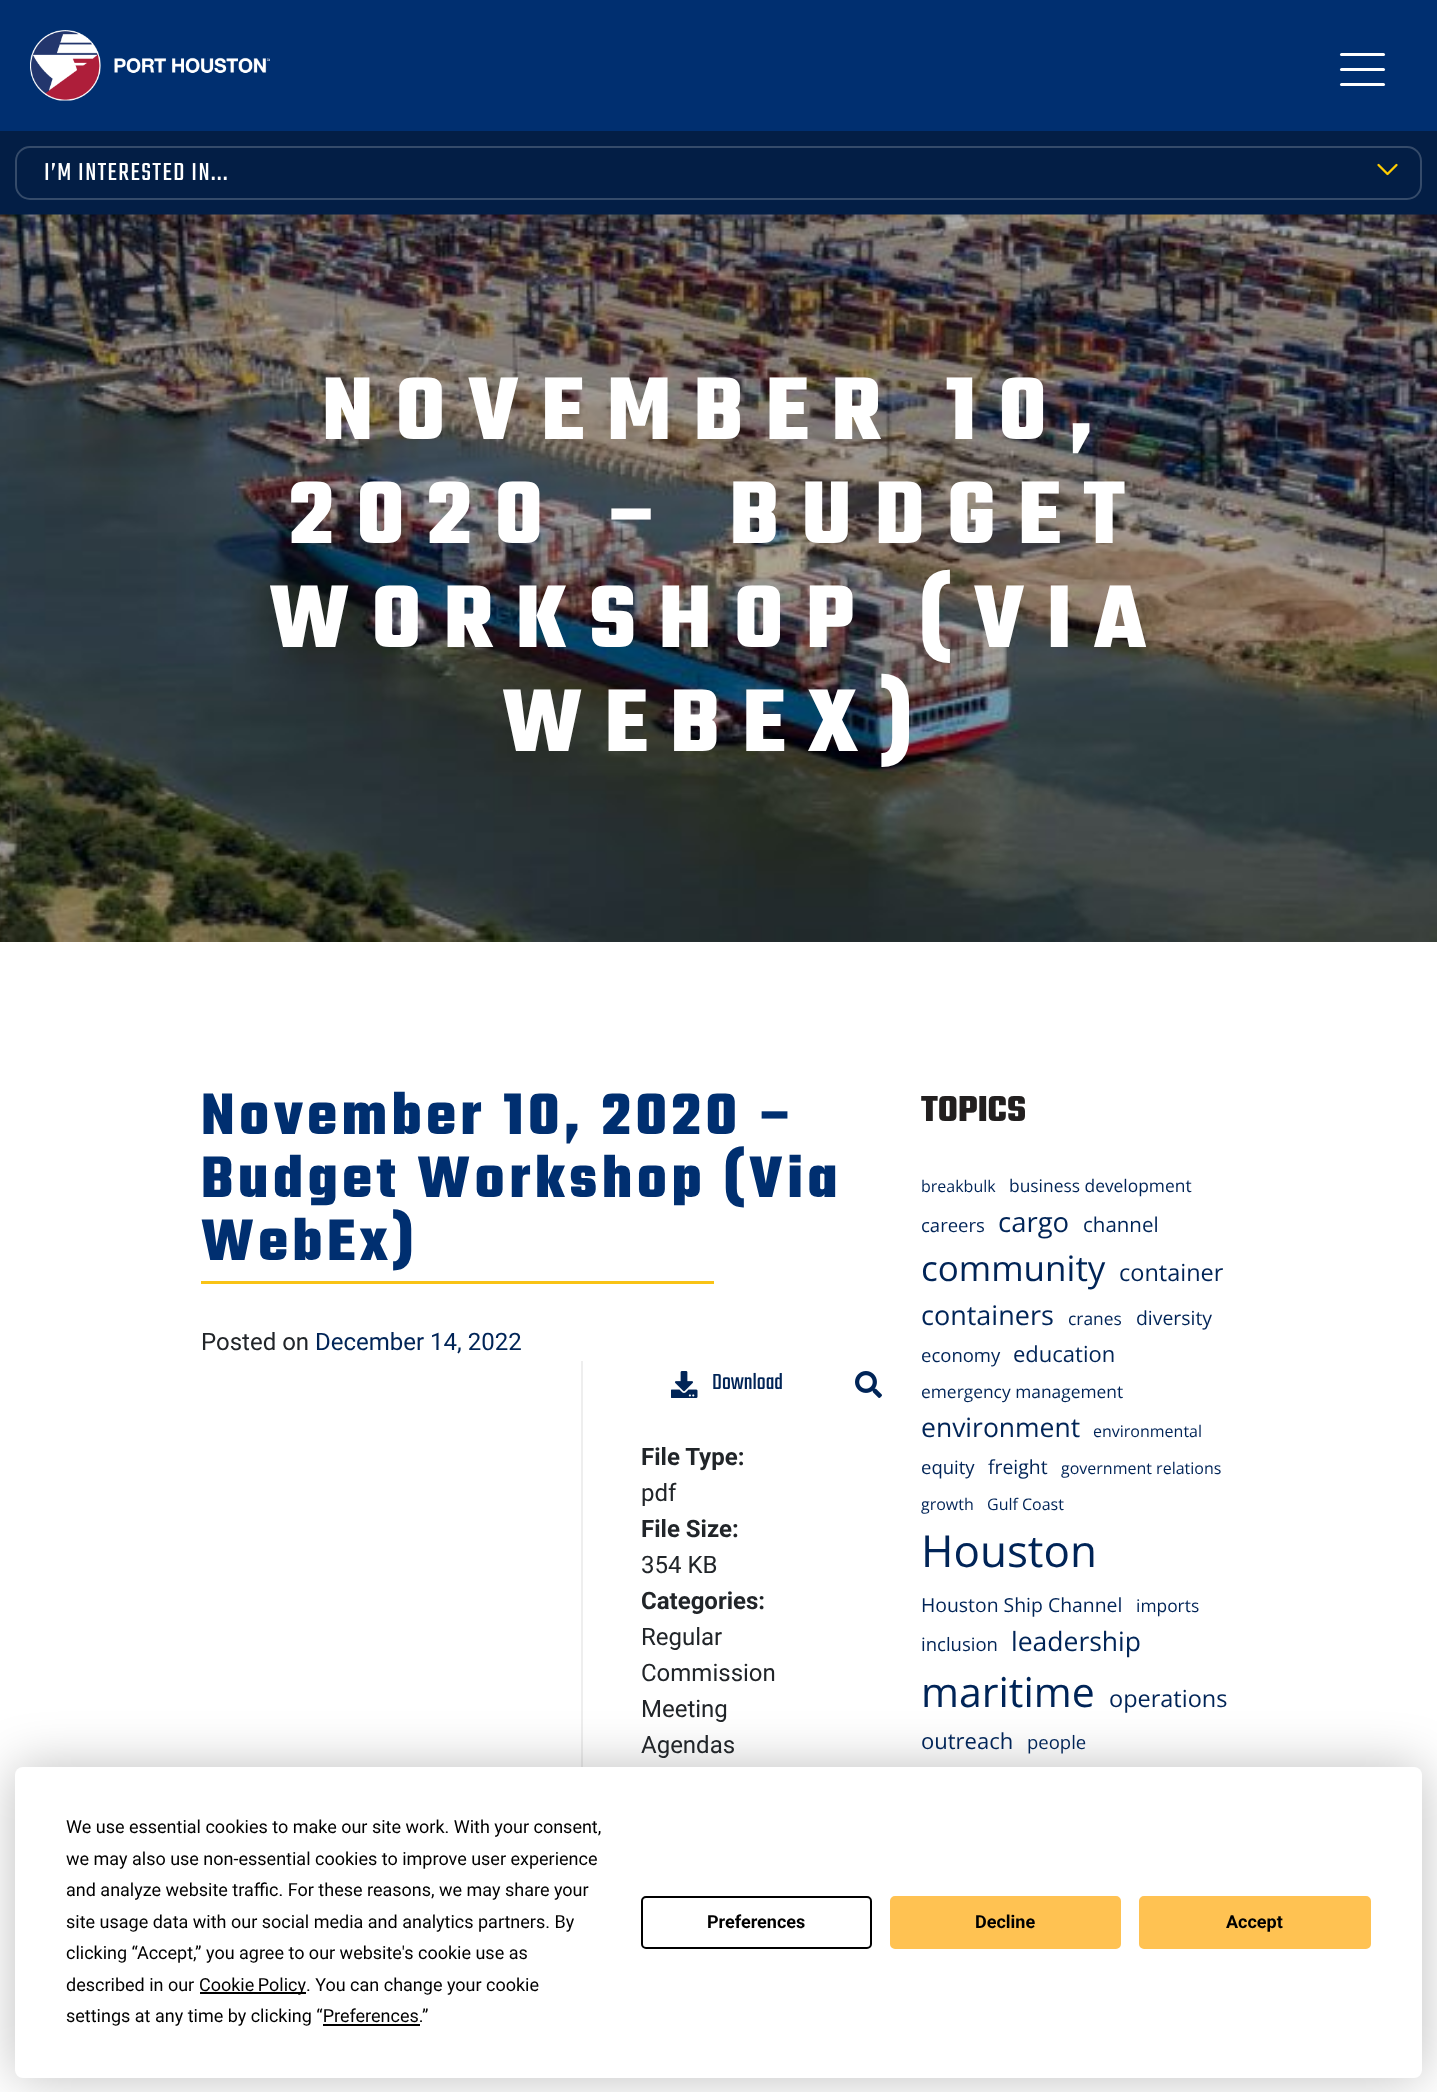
<!DOCTYPE html>
<meta charset="utf-8">
<style>body { margin: 0 } canvas { display: block }</style>
<canvas id="canvas" width="1437" height="2092"></canvas>
<img id="img1" src="img_01.png" hidden>
<img id="img2" src="img_02.png" hidden>
<img id="img3" src="img_03.png" hidden>
<img id="img4" src="img_04.png" hidden>
<img id="img5" src="img_05.png" hidden>
<script>
window.onload = function () {
	const canvas = document.getElementById("canvas");
	const ctx = canvas.getContext("2d");
	ctx.miterLimit = 4;
	ctx.fontKerning = "normal";
	function txt(s, x, y) {
		ctx.fillText(s, x, y);
	}
	function fill(x, y, w, h) {
		ctx.fillRect(x, y, w, h);
	}
	function round(x, y, w, h, r) {
		ctx.beginPath();
		ctx.roundRect(x, y, w, h, r);
		ctx.fill();
	}
	function img(id, x, y, w, h) {
		ctx.drawImage(document.getElementById(id), x, y, w, h);
	}

	ctx.fillStyle = "#FFFFFF";
	fill(0, 0, 1437, 2092);
	ctx.fillStyle = "#031E45";
	fill(0, 131, 1437, 84);
	ctx.fillStyle = "#002F70";
	fill(0, 0, 1437, 131);
	img("img1", 30, 30, 240, 71);
	ctx.fillStyle = "#FFFFFF";
	round(1340, 68, 45, 3, 1.5);
	round(1340, 53, 45, 3, 1.5);
	round(1340, 83, 45, 3, 1.5);
	ctx.beginPath();
	ctx.roundRect(16, 147, 1405, 52, 14);
	ctx.strokeStyle = "#354B6A";
	ctx.lineWidth = 2;
	ctx.stroke();
	img("img2", 1377, 163, 21, 13);
	img("img3", 0, 214, 1437, 728);
	ctx.fillStyle = "#F9C316";
	fill(201, 1281, 513, 3);
	ctx.fillStyle = "#EEEEEE";
	fill(581, 1361, 2, 406);
	img("img4", 671, 1371, 27, 27);
	img("img5", 855, 1371, 27, 27);
	ctx.fillStyle = "rgba(0, 0, 0, 0.25)";
	ctx.filter = "blur(26px)";
	ctx.beginPath();
	ctx.roundRect(15, 1767, 1407, 311, 8);
	ctx.fill();
	ctx.filter = "none";
	ctx.fillStyle = "#FFFFFF";
	round(15, 1767, 1407, 311, 8);
	ctx.fillStyle = "#000000";
	fill(200, 1992, 106, 2);
	fill(323, 2024, 97, 2);
	ctx.beginPath();
	ctx.roundRect(642, 1897, 229, 51, 4);
	ctx.strokeStyle = "#000000";
	ctx.stroke();
	ctx.fillStyle = "#FFC252";
	ctx.beginPath();
	ctx.roundRect(891, 1897, 229, 51, 4);
	ctx.fill();
	ctx.strokeStyle = "#FFC252";
	ctx.stroke();
	ctx.beginPath();
	ctx.roundRect(1140, 1897, 230, 51, 4);
	ctx.fill();
	ctx.stroke();
	ctx.letterSpacing = "1.5px";
	ctx.font = "27px Teko";
	ctx.fillStyle = "#FFFFFF";
	txt("I’M INTERESTED IN...", 44, 180);
	ctx.letterSpacing = "22.5px";
	ctx.font = "300 96px Teko";
	txt("NOVEMBER 10,", 322, 439);
	txt("2020 – BUDGET", 289, 543);
	txt("WORKSHOP (VIA", 269, 647);
	txt("WEBEX)", 502, 751);
	ctx.letterSpacing = "4.5px";
	ctx.font = "300 63px Teko";
	ctx.fillStyle = "#002F70";
	txt("November 10, 2020 –", 201, 1134);
	txt("Budget Workshop (Via", 201, 1197);
	txt("WebEx)", 201, 1260);
	ctx.letterSpacing = "0px";
	ctx.font = "24px Roboto";
	ctx.fillStyle = "#212529";
	txt("Posted on", 201, 1350);
	ctx.fillStyle = "#002457";
	txt("December 14, 2022", 315, 1350);
	ctx.font = "24px Teko";
	txt("Download", 712, 1389);
	ctx.font = "bold 24px Roboto";
	ctx.fillStyle = "#212529";
	txt("File Type:", 641, 1465);
	ctx.font = "24px Roboto";
	txt("pdf", 641, 1501);
	ctx.font = "bold 24px Roboto";
	txt("File Size:", 641, 1537);
	ctx.font = "24px Roboto";
	txt("354 KB", 641, 1573);
	ctx.font = "bold 24px Roboto";
	txt("Categories:", 641, 1609);
	ctx.font = "24px Roboto";
	txt("Regular", 641, 1645);
	txt("Commission", 641, 1681);
	txt("Meeting", 641, 1717);
	txt("Agendas", 641, 1753);
	ctx.font = "300 39px Teko";
	ctx.fillStyle = "#221F1F";
	txt("TOPICS", 921, 1121);
	ctx.font = "16px Open Sans";
	ctx.fillStyle = "#002457";
	txt("breakbulk", 921, 1192);
	ctx.font = "17.4px Open Sans";
	txt("business development", 1009, 1192);
	ctx.font = "18.5px Open Sans";
	txt("careers", 921, 1232);
	ctx.font = "27.5px Open Sans";
	txt("cargo", 998, 1232);
	ctx.font = "20.5px Open Sans";
	txt("channel", 1083, 1232);
	ctx.font = "35px Open Sans";
	txt("community", 921, 1281);
	ctx.font = "23.5px Open Sans";
	txt("container", 1119, 1281);
	ctx.font = "27px Open Sans";
	txt("containers", 921, 1325);
	ctx.font = "17.4px Open Sans";
	txt("cranes", 1068, 1325);
	ctx.font = "19.4px Open Sans";
	txt("diversity", 1136, 1325);
	ctx.font = "18.5px Open Sans";
	txt("economy", 921, 1362);
	ctx.font = "22px Open Sans";
	txt("education", 1013, 1362);
	ctx.font = "17.4px Open Sans";
	txt("emergency management", 921, 1398);
	ctx.font = "26.5px Open Sans";
	txt("environment", 921, 1437);
	ctx.font = "16px Open Sans";
	txt("environmental", 1093, 1437);
	ctx.font = "18.5px Open Sans";
	txt("equity", 921, 1474);
	ctx.font = "19.4px Open Sans";
	txt("freight", 988, 1474);
	ctx.font = "16px Open Sans";
	txt("government relations", 1061, 1474);
	txt("growth", 921, 1510);
	txt("Gulf Coast", 987, 1510);
	ctx.font = "44px Open Sans";
	txt("Houston", 921, 1567);
	ctx.font = "19.4px Open Sans";
	txt("Houston Ship Channel", 921, 1612);
	ctx.font = "17.4px Open Sans";
	txt("imports", 1136, 1612);
	ctx.font = "18.5px Open Sans";
	txt("inclusion", 921, 1651);
	ctx.font = "26.5px Open Sans";
	txt("leadership", 1011, 1651);
	ctx.font = "41px Open Sans";
	txt("maritime", 921, 1707);
	ctx.font = "23.5px Open Sans";
	txt("operations", 1109, 1707);
	ctx.font = "22px Open Sans";
	txt("outreach", 921, 1749);
	ctx.font = "18.5px Open Sans";
	txt("people", 1027, 1749);
	ctx.font = "18px Roboto";
	ctx.fillStyle = "#000000";
	txt("We use essential cookies to make our site work. With your consent,", 66, 1833);
	txt("we may also use non-essential cookies to improve user experience", 66, 1865);
	txt("and analyze website traffic. For these reasons, we may share your", 66, 1896);
	txt("site usage data with our social media and analytics partners. By", 66, 1928);
	txt("clicking “Accept,” you agree to our website's cookie use as", 66, 1959);
	txt("described in our", 66, 1991);
	ctx.wordSpacing = "-1px";
	txt("Cookie Policy", 199, 1991);
	ctx.wordSpacing = "0px";
	txt(". You can change your cookie", 306, 1991);
	txt("settings at any time by clicking “Preferences.”", 66, 2022);
	ctx.font = "bold 18px Roboto";
	txt("Preferences", 707, 1928);
	txt("Decline", 975, 1928);
	txt("Accept", 1226, 1928);
};
</script>
